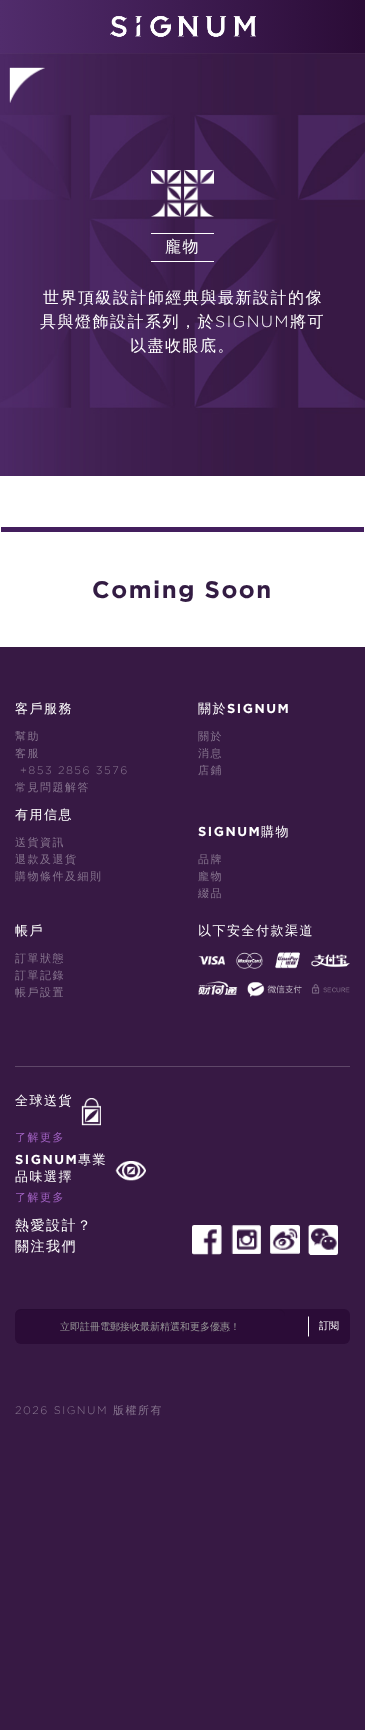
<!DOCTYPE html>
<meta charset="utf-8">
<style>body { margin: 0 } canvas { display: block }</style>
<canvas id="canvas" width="365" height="1730"></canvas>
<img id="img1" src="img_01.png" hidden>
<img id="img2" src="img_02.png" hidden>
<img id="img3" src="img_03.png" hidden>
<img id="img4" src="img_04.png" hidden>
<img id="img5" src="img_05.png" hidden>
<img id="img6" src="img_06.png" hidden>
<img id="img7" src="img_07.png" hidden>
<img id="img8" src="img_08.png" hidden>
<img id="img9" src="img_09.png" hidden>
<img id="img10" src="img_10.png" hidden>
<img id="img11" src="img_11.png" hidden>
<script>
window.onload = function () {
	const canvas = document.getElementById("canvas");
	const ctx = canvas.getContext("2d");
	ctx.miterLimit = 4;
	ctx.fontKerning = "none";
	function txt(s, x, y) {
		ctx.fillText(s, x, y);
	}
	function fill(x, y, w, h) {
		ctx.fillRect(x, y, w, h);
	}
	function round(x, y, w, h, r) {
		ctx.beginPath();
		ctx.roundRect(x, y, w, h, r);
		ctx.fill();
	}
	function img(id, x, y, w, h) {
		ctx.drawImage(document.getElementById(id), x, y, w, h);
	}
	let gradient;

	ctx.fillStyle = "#371944";
	fill(0, 0, 365, 1730);
	gradient = ctx.createLinearGradient(0, 27, 365, 26);
	gradient.addColorStop(0, "#512C6C");
	gradient.addColorStop(0.99, "#2B0C37");
	ctx.fillStyle = gradient;
	fill(0, 0, 365, 53);
	img("img1", 110, 16, 146, 21);
	ctx.fillStyle = "#FFFFFF";
	fill(0, 476, 365, 171);
	img("img2", 0, 53, 365, 423);
	img("img3", 9, 67, 36, 36);
	img("img4", 151, 170, 63, 47);
	fill(151, 233, 63, 1);
	fill(151, 261, 63, 1);
	ctx.fillStyle = "#431E5D";
	fill(1, 527, 363, 5);
	img("img5", 198, 952, 152, 45);
	ctx.fillStyle = "#5F4769";
	fill(15, 1066, 335, 1);
	img("img6", 81, 1098, 20, 28);
	img("img7", 115, 1161, 31, 20);
	img("img8", 192, 1225, 30, 30);
	img("img9", 231, 1225, 30, 29);
	img("img10", 270, 1225, 30, 29);
	img("img11", 308, 1225, 30, 30);
	ctx.fillStyle = "#2B0C37";
	round(15, 1309, 335, 35, 6);
	ctx.fillStyle = "rgba(0, 0, 0, 0.07)";
	ctx.beginPath();
	ctx.moveTo(21, 1310);
	ctx.lineTo(279, 1310);
	ctx.bezierCurveTo(282, 1310, 285, 1313, 285, 1316);
	ctx.lineTo(285, 1315);
	ctx.bezierCurveTo(285, 1312, 282, 1309, 279, 1309);
	ctx.lineTo(21, 1309);
	ctx.bezierCurveTo(18, 1309, 15, 1312, 15, 1315);
	ctx.lineTo(15, 1316);
	ctx.bezierCurveTo(15, 1313, 18, 1310, 21, 1310);
	ctx.closePath();
	ctx.fill();
	ctx.fillStyle = "#FFFFFF";
	ctx.beginPath();
	ctx.moveTo(308, 1316);
	ctx.lineTo(308, 1337);
	ctx.lineTo(309, 1336);
	ctx.lineTo(309, 1317);
	ctx.closePath();
	ctx.fill();
	ctx.letterSpacing = "1.5px";
	ctx.font = "500 16px WenQuanYi Zen Hei";
	txt("龐物", 165, 252);
	txt("世界頂級設計師經典與最新設計的傢", 43, 303);
	txt("具與燈飾設計系列，於", 40, 327);
	ctx.font = "300 16px Gotham";
	txt("SIGNUM", 215, 327);
	ctx.font = "500 16px WenQuanYi Zen Hei";
	txt("將可", 290, 327);
	txt("以盡收眼底。", 130, 351);
	ctx.font = "bold 24px Gotham";
	ctx.fillStyle = "#331C43";
	txt("Coming Soon", 92, 598);
	ctx.font = "500 13px WenQuanYi Zen Hei";
	ctx.fillStyle = "#FFFFFF";
	txt("客戶服務", 15, 713);
	ctx.font = "500 11px WenQuanYi Zen Hei";
	ctx.fillStyle = "#87758F";
	txt("幫助", 15, 740);
	txt("客服", 15, 757);
	ctx.font = "300 11px Gotham";
	txt("+853 2856 3576", 20, 774);
	ctx.font = "500 11px WenQuanYi Zen Hei";
	txt("常見問題解答", 15, 791);
	ctx.font = "500 13px WenQuanYi Zen Hei";
	ctx.fillStyle = "#FFFFFF";
	txt("有用信息", 15, 819);
	ctx.font = "500 11px WenQuanYi Zen Hei";
	ctx.fillStyle = "#87758F";
	txt("送貨資訊", 15, 846);
	txt("退款及退貨", 15, 863);
	txt("購物條件及細則", 15, 880);
	ctx.font = "500 13px WenQuanYi Zen Hei";
	ctx.fillStyle = "#FFFFFF";
	txt("關於", 198, 713);
	ctx.font = "bold 13px Gotham";
	txt("SIGNUM", 227, 713);
	ctx.font = "500 11px WenQuanYi Zen Hei";
	ctx.fillStyle = "#87758F";
	txt("關於", 198, 740);
	txt("消息", 198, 757);
	txt("店鋪", 198, 774);
	ctx.font = "bold 13px Gotham";
	ctx.fillStyle = "#FFFFFF";
	txt("SIGNUM", 198, 836);
	ctx.font = "500 13px WenQuanYi Zen Hei";
	txt("購物", 261, 836);
	ctx.font = "500 11px WenQuanYi Zen Hei";
	ctx.fillStyle = "#87758F";
	txt("品牌", 198, 863);
	txt("龐物", 198, 880);
	ctx.save();
	ctx.beginPath();
	ctx.rect(198, 851, 167, 51);
	ctx.clip();
	txt("綴品", 198, 897);
	ctx.restore();
	ctx.font = "500 13px WenQuanYi Zen Hei";
	ctx.fillStyle = "#FFFFFF";
	txt("帳戶", 15, 935);
	ctx.font = "500 11px WenQuanYi Zen Hei";
	ctx.fillStyle = "#87758F";
	txt("訂單狀態", 15, 962);
	txt("訂單記錄", 15, 979);
	txt("帳戶設置", 15, 996);
	ctx.font = "500 13px WenQuanYi Zen Hei";
	ctx.fillStyle = "#FFFFFF";
	txt("以下安全付款渠道", 198, 935);
	txt("全球送貨", 15, 1105);
	ctx.font = "500 11px WenQuanYi Zen Hei";
	ctx.fillStyle = "#A061C1";
	txt("了解更多", 15, 1141);
	ctx.font = "bold 13px Gotham";
	ctx.fillStyle = "#FFFFFF";
	txt("SIGNUM", 15, 1164);
	ctx.font = "500 13px WenQuanYi Zen Hei";
	txt("專業", 78, 1164);
	txt("品味選擇", 15, 1181);
	ctx.font = "500 11px WenQuanYi Zen Hei";
	ctx.fillStyle = "#A061C1";
	txt("了解更多", 15, 1201);
	ctx.font = "500 14px WenQuanYi Zen Hei";
	ctx.fillStyle = "#FFFFFF";
	txt("熱愛設計？", 15, 1230);
	txt("關注我們", 15, 1251);
	ctx.letterSpacing = "0px";
	ctx.font = "500 10px WenQuanYi Zen Hei";
	ctx.fillStyle = "#999999";
	txt("立即註冊電郵接收最新精選和更多優惠！", 60, 1330);
	ctx.fillStyle = "#FFFFFF";
	txt("訂閱", 319, 1329);
	ctx.letterSpacing = "1.5px";
	ctx.font = "300 11px Gotham";
	ctx.fillStyle = "#87758F";
	txt("2026 SIGNUM", 15, 1414);
	ctx.font = "500 11px WenQuanYi Zen Hei";
	txt("版權所有", 113, 1414);
};
</script>
